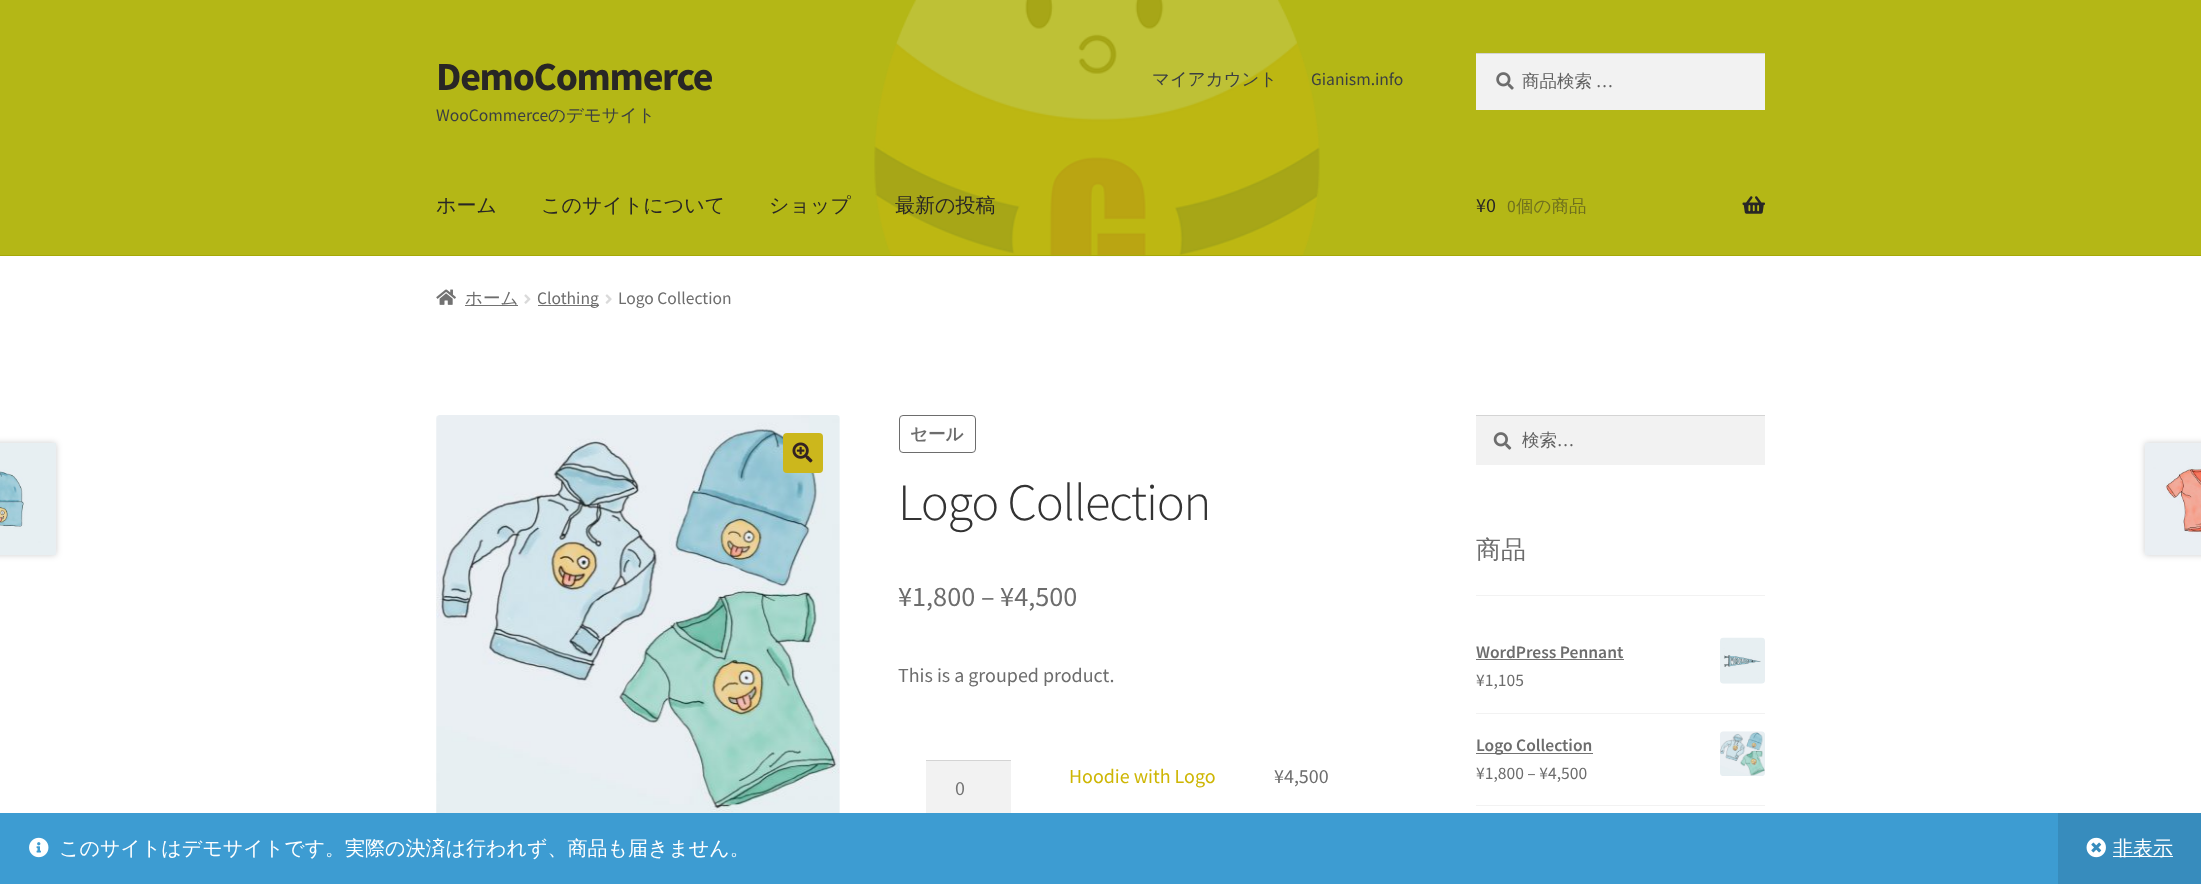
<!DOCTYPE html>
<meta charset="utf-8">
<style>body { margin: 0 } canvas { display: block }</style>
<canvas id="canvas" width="2201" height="884"></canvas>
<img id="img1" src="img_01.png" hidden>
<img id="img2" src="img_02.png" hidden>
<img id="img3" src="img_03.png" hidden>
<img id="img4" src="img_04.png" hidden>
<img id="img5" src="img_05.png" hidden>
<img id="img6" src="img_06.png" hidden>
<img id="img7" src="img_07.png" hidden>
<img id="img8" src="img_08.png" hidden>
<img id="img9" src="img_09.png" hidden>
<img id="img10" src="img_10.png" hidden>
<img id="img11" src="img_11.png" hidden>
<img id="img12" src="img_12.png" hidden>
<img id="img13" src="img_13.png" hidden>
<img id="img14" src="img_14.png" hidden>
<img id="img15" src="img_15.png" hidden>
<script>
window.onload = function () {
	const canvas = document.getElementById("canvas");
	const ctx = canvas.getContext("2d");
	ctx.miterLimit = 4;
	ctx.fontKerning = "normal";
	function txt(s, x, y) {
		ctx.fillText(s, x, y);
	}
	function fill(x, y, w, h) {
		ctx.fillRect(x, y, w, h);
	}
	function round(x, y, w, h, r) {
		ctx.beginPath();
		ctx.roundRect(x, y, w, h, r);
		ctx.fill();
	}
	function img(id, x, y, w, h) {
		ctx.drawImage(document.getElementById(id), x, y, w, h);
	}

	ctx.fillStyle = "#FFFFFF";
	fill(0, 0, 2201, 884);
	ctx.fillStyle = "#B4B716";
	fill(0, 0, 2201, 255);
	img("img1", 874, 0, 446, 257);
	ctx.fillStyle = "#A5A807";
	fill(0, 255, 2201, 1);
	ctx.fillStyle = "#F2F2F2";
	fill(1476, 54, 289, 56);
	img("img2", 1496, 72, 18, 18);
	ctx.fillStyle = "#D4D4D4";
	fill(1476, 53, 289, 1);
	img("img3", 1742, 196, 23, 18);
	img("img4", 436, 289, 20, 16);
	ctx.fillStyle = "#727272";
	fill(465, 305, 53, 1);
	img("img5", 524, 294, 7, 10);
	fill(538, 305, 61, 1);
	img("img6", 605, 294, 7, 10);
	img("img7", 436, 415, 404, 398);
	ctx.fillStyle = "#CCB71C";
	round(783, 433, 40, 40, 4);
	img("img8", 792, 442, 21, 21);
	ctx.beginPath();
	ctx.roundRect(899.5, 415.5, 76, 37, 3.5);
	ctx.strokeStyle = "#6D6D6D";
	ctx.stroke();
	ctx.fillStyle = "rgba(0, 0, 0, 0.2)";
	ctx.filter = "blur(3px)";
	ctx.beginPath();
	ctx.rect(-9, 443, 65, 112);
	ctx.fill();
	ctx.filter = "none";
	img("img9", 0, 443, 56, 112);
	ctx.filter = "blur(3px)";
	ctx.beginPath();
	ctx.rect(2145, 443, 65, 112);
	ctx.fill();
	ctx.filter = "none";
	img("img10", 2145, 443, 56, 112);
	ctx.fillStyle = "#F2F2F2";
	fill(926, 761, 85, 52);
	ctx.fillStyle = "#D4D4D4";
	fill(926, 760, 85, 1);
	ctx.fillStyle = "#F2F2F2";
	fill(1476, 416, 289, 49);
	img("img11", 1493, 432, 19, 18);
	ctx.fillStyle = "#D4D4D4";
	fill(1476, 415, 289, 1);
	ctx.fillStyle = "#F2F2F2";
	fill(1476, 595, 289, 1);
	fill(1476, 713, 289, 1);
	ctx.fillStyle = "#727272";
	fill(1476, 659, 148, 1);
	img("img12", 1720, 637, 45, 47);
	ctx.fillStyle = "#F2F2F2";
	fill(1476, 805, 289, 1);
	ctx.fillStyle = "#727272";
	fill(1476, 753, 117, 1);
	img("img13", 1720, 731, 45, 45);
	ctx.fillStyle = "#3D9CD2";
	fill(0, 813, 2058, 71);
	img("img14", 29, 837, 20, 21);
	ctx.fillStyle = "#378CBD";
	fill(2058, 813, 143, 71);
	img("img15", 2086, 837, 20, 21);
	ctx.fillStyle = "#FFFFFF";
	fill(2113, 856, 60, 1);
	ctx.letterSpacing = "-1.25px";
	ctx.font = "bold 40px Source Sans Pro";
	ctx.fillStyle = "#282625";
	txt("DemoCommerce", 436, 90);
	ctx.letterSpacing = "0px";
	ctx.font = "17.5px Source Sans Pro";
	ctx.fillStyle = "#3B3F42";
	txt("WooCommerce", 436, 121);
	ctx.font = "500 17.5px WenQuanYi Zen Hei";
	txt("のデモサイト", 548, 121);
	txt("マイアカウント", 1152, 85);
	ctx.font = "17.5px Source Sans Pro";
	txt("Gianism.info", 1311, 85);
	ctx.font = "500 17.5px WenQuanYi Zen Hei";
	ctx.fillStyle = "#616161";
	txt("商品検索", 1522, 87);
	ctx.font = "17.5px Source Sans Pro";
	txt("…", 1596, 87);
	ctx.font = "500 20px WenQuanYi Zen Hei";
	ctx.fillStyle = "#282625";
	txt("ホーム", 436, 212);
	txt("このサイトについて", 541, 212);
	txt("ショップ", 769, 212);
	txt("最新の投稿", 895, 212);
	ctx.font = "20px Source Sans Pro";
	txt("¥0", 1476, 212);
	ctx.font = "17.5px Source Sans Pro";
	ctx.fillStyle = "#6E6F1E";
	txt("0", 1507, 212);
	ctx.font = "500 17.5px WenQuanYi Zen Hei";
	txt("個の商品", 1516, 212);
	ctx.fillStyle = "#6D6D6D";
	txt("ホーム", 465, 304);
	ctx.font = "17.5px Source Sans Pro";
	txt("Clothing", 537, 304);
	txt("Logo Collection", 618, 304);
	ctx.font = "bold 17.5px WenQuanYi Zen Hei";
	txt("セール", 910, 440);
	ctx.letterSpacing = "-1.25px";
	ctx.font = "300 52.5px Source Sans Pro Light";
	ctx.fillStyle = "#333333";
	txt("Logo Collection", 898, 520);
	ctx.letterSpacing = "0px";
	ctx.font = "28.25px Source Sans Pro";
	ctx.fillStyle = "#6D6D6D";
	txt("¥1,800 – ¥4,500", 898, 606);
	ctx.font = "20px Source Sans Pro";
	txt("This is a grouped product.", 898, 682);
	ctx.fillStyle = "#CEB604";
	txt("Hoodie with Logo", 1069, 783);
	ctx.fillStyle = "#6D6D6D";
	txt("¥4,500", 1274, 783);
	ctx.fillStyle = "#757575";
	txt("0", 955, 795);
	ctx.font = "500 17.5px WenQuanYi Zen Hei";
	ctx.fillStyle = "#616161";
	txt("検索", 1522, 446);
	ctx.font = "17.5px Source Sans Pro";
	txt("…", 1557, 446);
	ctx.font = "500 25px WenQuanYi Zen Hei";
	ctx.fillStyle = "#6D6D6D";
	txt("商品", 1476, 558);
	ctx.font = "600 17.5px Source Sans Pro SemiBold";
	txt("WordPress Pennant", 1476, 658);
	ctx.font = "17.5px Source Sans Pro";
	txt("¥1,105", 1476, 686);
	ctx.font = "600 17.5px Source Sans Pro SemiBold";
	txt("Logo Collection", 1476, 751);
	ctx.font = "17.5px Source Sans Pro";
	txt("¥1,800 – ¥4,500", 1476, 779);
	ctx.font = "500 20px WenQuanYi Zen Hei";
	ctx.fillStyle = "#FFFFFF";
	txt("このサイトはデモサイトです。実際の決済は行われず、商品も届きません。", 59, 855);
	txt("非表示", 2113, 855);
};
</script>
